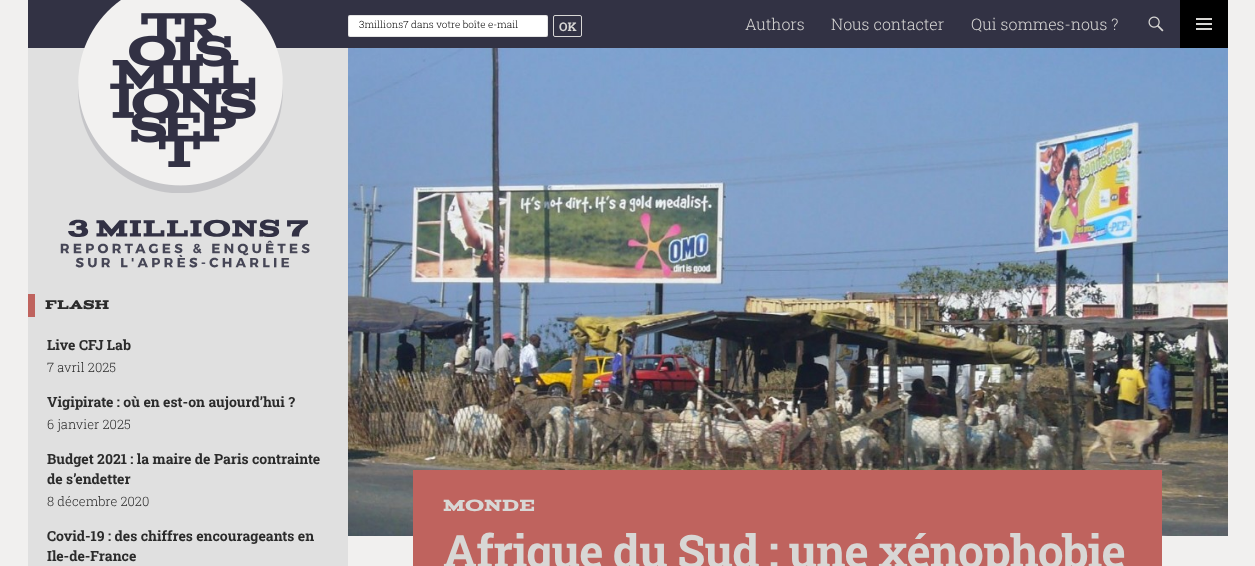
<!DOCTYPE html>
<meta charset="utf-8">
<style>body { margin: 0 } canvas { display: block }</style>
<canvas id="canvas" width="1255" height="566"></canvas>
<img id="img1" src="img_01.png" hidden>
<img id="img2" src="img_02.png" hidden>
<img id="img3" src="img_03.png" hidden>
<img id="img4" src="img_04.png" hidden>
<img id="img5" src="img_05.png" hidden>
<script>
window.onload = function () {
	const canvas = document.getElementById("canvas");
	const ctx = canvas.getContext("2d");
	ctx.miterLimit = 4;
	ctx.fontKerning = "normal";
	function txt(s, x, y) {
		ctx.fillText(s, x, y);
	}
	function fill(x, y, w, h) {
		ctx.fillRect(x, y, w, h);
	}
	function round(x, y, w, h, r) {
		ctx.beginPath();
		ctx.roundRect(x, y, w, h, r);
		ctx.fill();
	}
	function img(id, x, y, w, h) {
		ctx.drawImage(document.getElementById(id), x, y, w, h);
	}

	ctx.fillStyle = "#F1F0EF";
	fill(0, 0, 1255, 566);
	ctx.fillStyle = "#323244";
	fill(28, 0, 1152, 48);
	ctx.fillStyle = "#E0E0E0";
	fill(28, 48, 320, 518);
	img("img1", 78, 0, 205, 193);
	ctx.fillStyle = "#FFFFFF";
	round(348, 15, 200, 22, 2);
	ctx.beginPath();
	ctx.roundRect(348.5, 15.5, 199, 21, 1.5);
	ctx.strokeStyle = "rgba(0, 0, 0, 0.1)";
	ctx.stroke();
	ctx.beginPath();
	ctx.roundRect(553.5, 15.5, 28, 21, 1.5);
	ctx.strokeStyle = "#D8D7D5";
	ctx.stroke();
	img("img2", 1148, 16, 16, 16);
	ctx.fillStyle = "#000000";
	fill(1180, 0, 48, 48);
	img("img3", 1196, 18, 16, 12);
	img("img4", 60, 219, 250, 49);
	ctx.fillStyle = "#BF635E";
	fill(28, 294, 7, 23);
	img("img5", 348, 48, 880, 488);
	fill(413, 470, 749, 96);
	ctx.font = "300 10px Roboto Slab";
	ctx.fillStyle = "#000000";
	txt("3millions7 dans votre boîte e-mail", 359, 28);
	ctx.font = "bold 12px Roboto Slab";
	ctx.fillStyle = "#D8D7D5";
	txt("OK", 559, 31);
	ctx.font = "300 16px Roboto Slab";
	txt("Authors", 745, 30);
	txt("Nous contacter", 831, 30);
	txt("Qui sommes-nous ?", 971, 30);
	ctx.font = "500 14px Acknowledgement";
	ctx.fillStyle = "#2B2B2B";
	txt("FLASH", 45, 309);
	ctx.font = "bold 14px Roboto Slab";
	txt("Live CFJ Lab", 47, 350);
	ctx.font = "300 13px Roboto Slab";
	txt("7 avril 2025", 47, 372);
	ctx.font = "bold 14px Roboto Slab";
	txt("Vigipirate : où en est-on aujourd’hui ?", 47, 407);
	ctx.font = "300 13px Roboto Slab";
	txt("6 janvier 2025", 47, 429);
	ctx.font = "bold 14px Roboto Slab";
	txt("Budget 2021 : la maire de Paris contrainte", 47, 464);
	txt("de s’endetter", 47, 484);
	ctx.font = "300 13px Roboto Slab";
	txt("8 décembre 2020", 47, 506);
	ctx.font = "bold 14px Roboto Slab";
	txt("Covid-19 : des chiffres encourageants en", 47, 541);
	txt("Ile-de-France", 47, 561);
	ctx.font = "500 18px Acknowledgement";
	ctx.fillStyle = "#D8D7D5";
	txt("MONDE", 443, 511);
	ctx.letterSpacing = "-0.9px";
	ctx.font = "bold 46px Roboto Slab";
	txt("Afrique du Sud : une xénophobie", 443, 568);
};
</script>
